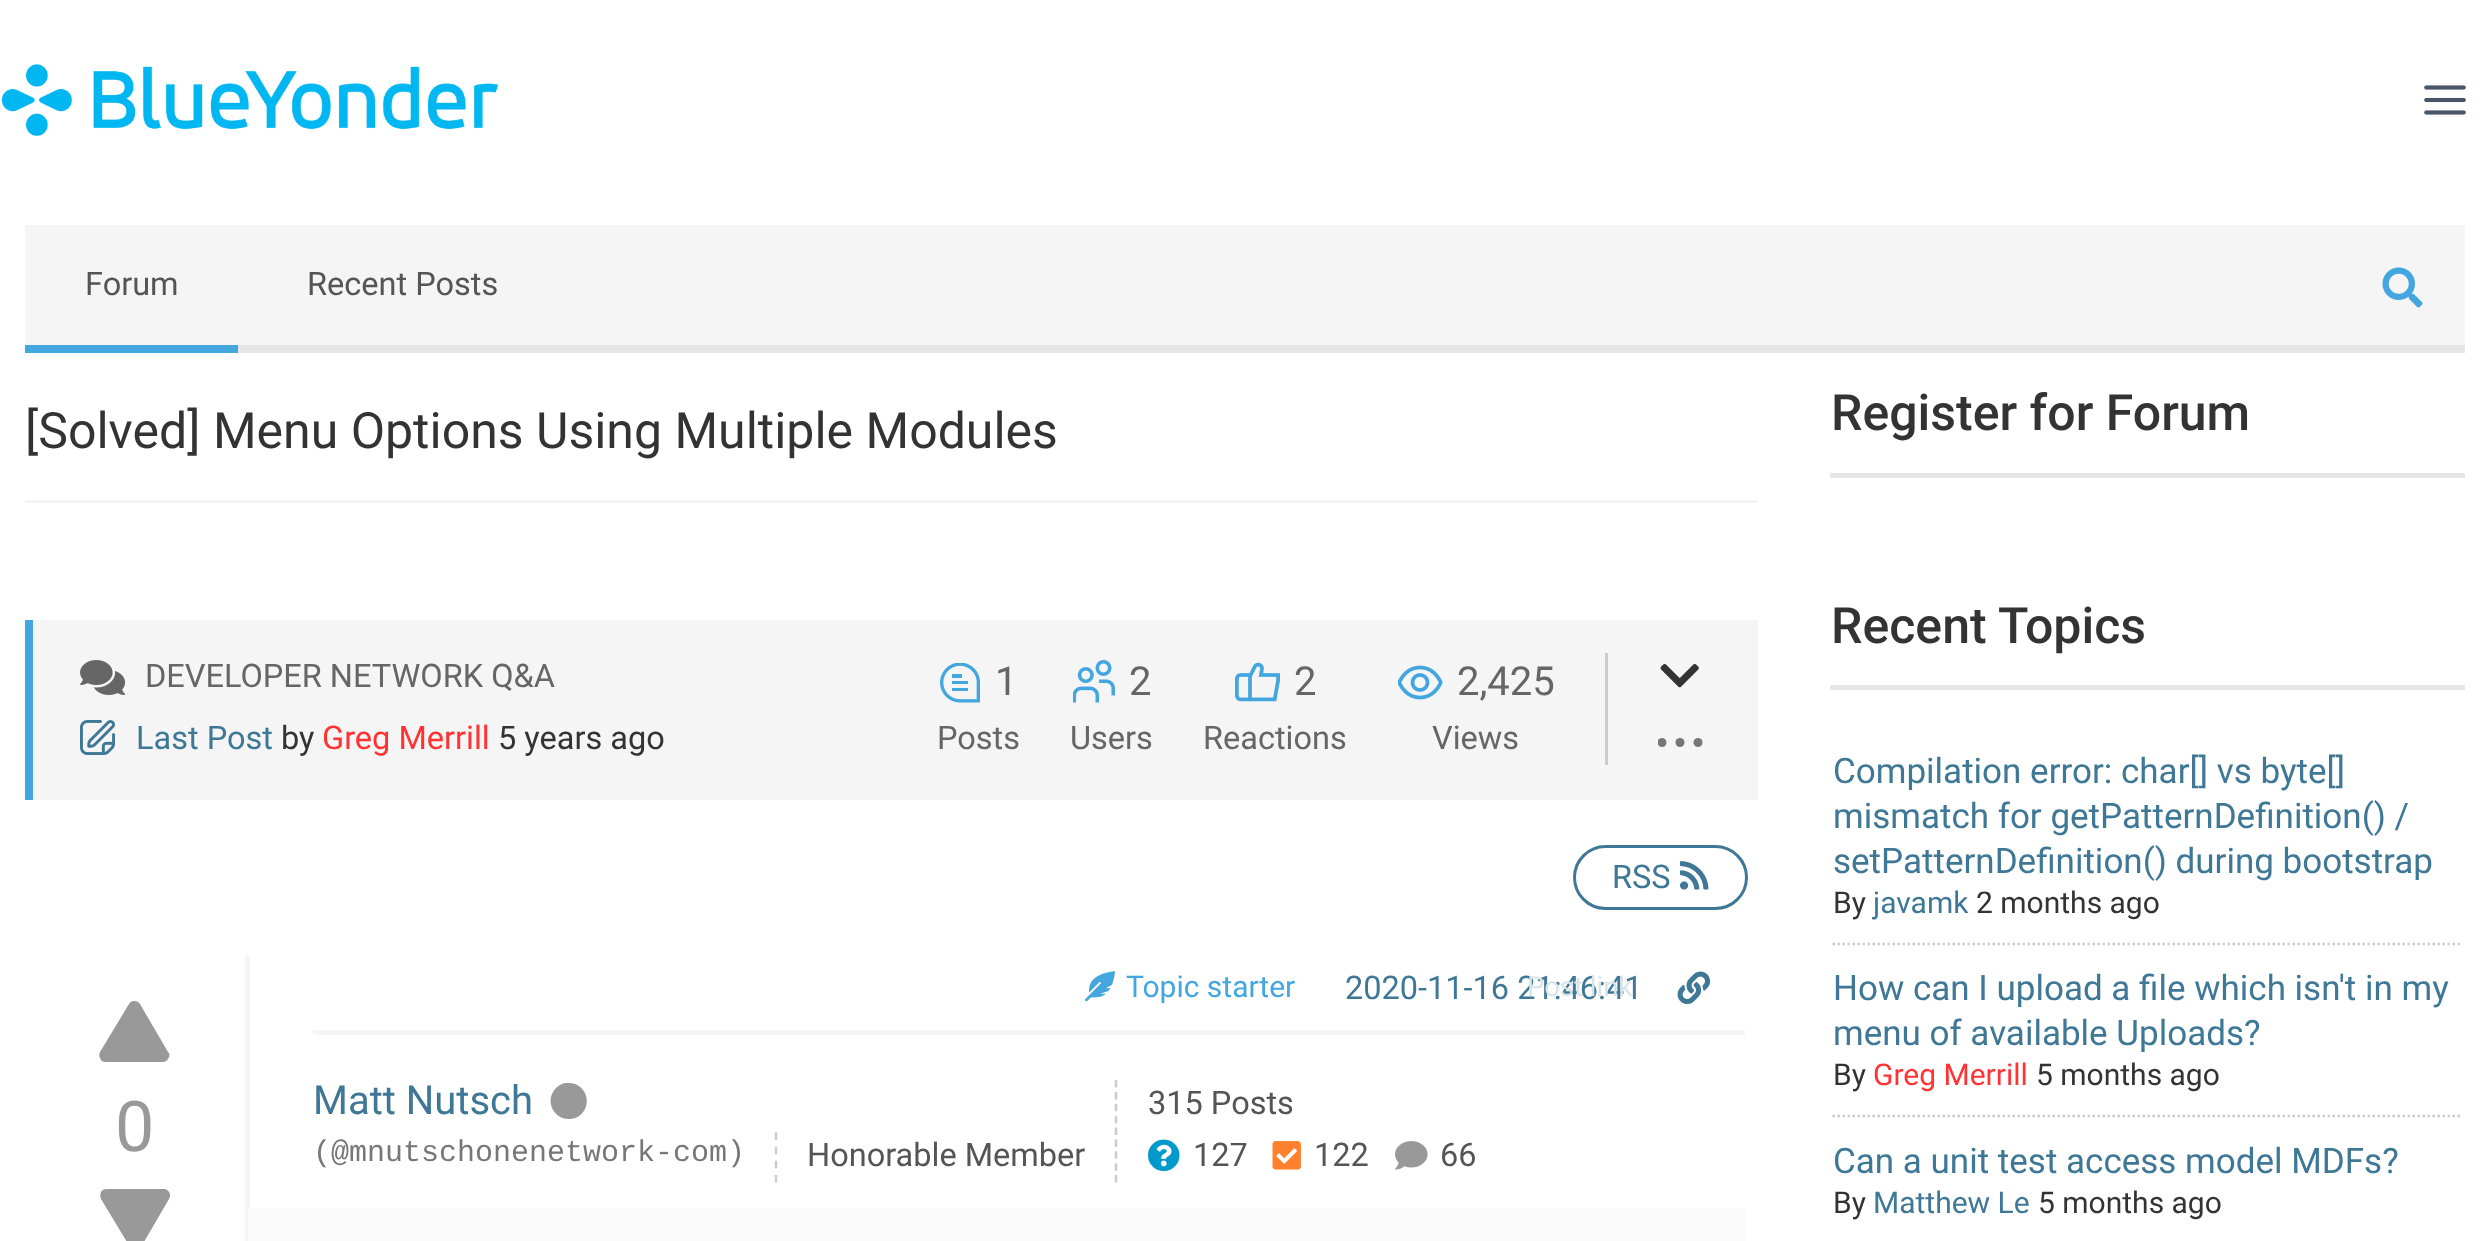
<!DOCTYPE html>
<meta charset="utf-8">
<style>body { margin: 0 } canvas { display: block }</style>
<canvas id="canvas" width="2488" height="1241"></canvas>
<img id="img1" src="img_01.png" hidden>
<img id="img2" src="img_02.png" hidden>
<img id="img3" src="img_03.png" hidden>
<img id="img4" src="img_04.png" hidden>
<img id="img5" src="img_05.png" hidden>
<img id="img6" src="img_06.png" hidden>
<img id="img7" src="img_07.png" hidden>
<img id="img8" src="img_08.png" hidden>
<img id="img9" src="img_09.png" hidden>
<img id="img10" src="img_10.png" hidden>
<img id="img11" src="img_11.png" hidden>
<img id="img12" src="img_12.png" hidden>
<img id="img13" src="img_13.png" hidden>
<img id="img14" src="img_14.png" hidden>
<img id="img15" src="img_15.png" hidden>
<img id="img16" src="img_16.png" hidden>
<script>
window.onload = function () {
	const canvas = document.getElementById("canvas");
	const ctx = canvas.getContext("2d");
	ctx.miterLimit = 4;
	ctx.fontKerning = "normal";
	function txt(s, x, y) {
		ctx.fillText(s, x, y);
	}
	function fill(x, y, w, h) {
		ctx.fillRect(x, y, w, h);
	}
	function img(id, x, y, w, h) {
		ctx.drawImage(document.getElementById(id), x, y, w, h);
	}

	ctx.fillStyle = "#FFFFFF";
	fill(0, 0, 2488, 1241);
	img("img1", 1, 64, 498, 73);
	img("img2", 2424, 85, 42, 30);
	ctx.fillStyle = "#F5F5F5";
	fill(25, 225, 2440, 120);
	ctx.fillStyle = "#E6E6E6";
	fill(238, 345, 2227, 8);
	ctx.fillStyle = "#43A6DF";
	fill(25, 345, 213, 8);
	img("img3", 2382, 267, 41, 41);
	ctx.fillStyle = "#F5F5F5";
	fill(25, 500, 1733, 3);
	fill(33, 620, 1725, 180);
	ctx.fillStyle = "#43A6DF";
	fill(25, 620, 8, 180);
	img("img4", 80, 660, 46, 35);
	img("img5", 80, 720, 35, 35);
	img("img6", 940, 663, 40, 40);
	img("img7", 1073, 660, 42, 43);
	img("img8", 1235, 662, 45, 40);
	img("img9", 1398, 665, 45, 35);
	ctx.fillStyle = "#CCCCCC";
	fill(1605, 653, 3, 112);
	img("img10", 1660, 664, 39, 24);
	ctx.save();
	ctx.beginPath();
	ctx.rect(1658, 720, 45, 45);
	ctx.clip();
	ctx.fillStyle = "#777777";
	ctx.beginPath();
	ctx.arc(1662, 742.5, 4.5, 0, Math.PI * 2);
	ctx.fill();
	ctx.restore();
	ctx.fillStyle = "#777777";
	ctx.beginPath();
	ctx.arc(1680, 742.5, 4.5, 0, Math.PI * 2);
	ctx.fill();
	ctx.beginPath();
	ctx.arc(1698, 742.5, 4.5, 0, Math.PI * 2);
	ctx.fill();
	ctx.beginPath();
	ctx.roundRect(1574.5, 846.5, 172, 62, 31);
	ctx.strokeStyle = "#3F7796";
	ctx.lineWidth = 3;
	ctx.stroke();
	img("img11", 1680, 861, 29, 29);
	ctx.fillStyle = "#F5F5F5";
	fill(245, 955, 5, 286);
	ctx.fillStyle = "#999999";
	ctx.beginPath();
	ctx.moveTo(129, 1004);
	ctx.bezierCurveTo(130, 1002, 132, 1001, 134, 1001);
	ctx.bezierCurveTo(137, 1001, 139, 1002, 140, 1004);
	ctx.lineTo(168, 1052);
	ctx.bezierCurveTo(170, 1054, 170, 1056, 168, 1059);
	ctx.bezierCurveTo(167, 1061, 165, 1062, 163, 1062);
	ctx.lineTo(106, 1062);
	ctx.bezierCurveTo(103, 1062, 101, 1061, 100, 1058);
	ctx.bezierCurveTo(99, 1056, 99, 1054, 100, 1052);
	ctx.closePath();
	ctx.fill();
	ctx.beginPath();
	ctx.moveTo(141, 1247);
	ctx.bezierCurveTo(139, 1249, 138, 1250, 135, 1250);
	ctx.bezierCurveTo(133, 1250, 131, 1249, 130, 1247);
	ctx.lineTo(101, 1199);
	ctx.bezierCurveTo(100, 1197, 100, 1194, 101, 1192);
	ctx.bezierCurveTo(102, 1190, 104, 1189, 107, 1189);
	ctx.lineTo(164, 1189);
	ctx.bezierCurveTo(166, 1189, 168, 1190, 169, 1192);
	ctx.bezierCurveTo(171, 1195, 170, 1197, 169, 1199);
	ctx.closePath();
	ctx.fill();
	ctx.fillStyle = "#F5F5F5";
	fill(313, 1030, 1432, 5);
	img("img12", 1085, 971, 30, 31);
	img("img13", 1677, 971, 34, 34);
	ctx.fillStyle = "#999999";
	ctx.beginPath();
	ctx.moveTo(556, 1088);
	ctx.bezierCurveTo(559, 1085, 562.5, 1083, 567, 1083);
	ctx.bezierCurveTo(584, 1081.5, 593.5, 1101.5, 581.5, 1114);
	ctx.bezierCurveTo(578.5, 1117, 575, 1118.5, 570.5, 1119);
	ctx.bezierCurveTo(553.5, 1120.5, 544, 1100, 556, 1088);
	ctx.closePath();
	ctx.fill();
	ctx.beginPath();
	ctx.moveTo(776, 1132.5);
	ctx.lineTo(776, 1182.5);
	ctx.strokeStyle = "#CCCCCC";
	ctx.lineWidth = 2.5;
	ctx.setLineDash([7.5, 6.67]);
	ctx.stroke();
	ctx.beginPath();
	ctx.moveTo(1116, 1080);
	ctx.lineTo(1116, 1182.5);
	ctx.setLineDash([7.5, 4.38]);
	ctx.stroke();
	img("img14", 1148, 1139, 32, 33);
	img("img15", 1272, 1141, 29, 29);
	img("img16", 1395, 1141, 33, 29);
	ctx.fillStyle = "#FAFAFA";
	fill(248, 1208, 1497, 33);
	ctx.fillStyle = "#E6E6E6";
	fill(1830, 473, 635, 5);
	fill(1830, 685, 635, 5);
	ctx.beginPath();
	ctx.moveTo(1832.5, 944);
	ctx.lineTo(2462.5, 944);
	ctx.setLineDash([2.5, 2.5]);
	ctx.stroke();
	ctx.beginPath();
	ctx.moveTo(1832.5, 1116);
	ctx.lineTo(2462.5, 1116);
	ctx.stroke();
	ctx.font = "32.5px Roboto";
	ctx.fillStyle = "#555555";
	txt("Forum", 85, 295);
	txt("Recent Posts", 307, 295);
	ctx.font = "50px Roboto";
	ctx.fillStyle = "#333333";
	txt("[Solved] Menu Options Using Multiple Modules", 25, 448);
	ctx.font = "32.5px Roboto";
	ctx.fillStyle = "#666666";
	txt("DEVELOPER NETWORK Q&A", 145, 687);
	ctx.fillStyle = "#3F7796";
	txt("Last Post", 136, 749);
	ctx.fillStyle = "#333333";
	txt("by", 281, 749);
	ctx.fillStyle = "#FF3333";
	txt("Greg Merrill", 322, 749);
	ctx.fillStyle = "#333333";
	txt("5 years ago", 498, 749);
	ctx.font = "40px Roboto";
	ctx.fillStyle = "#666666";
	txt("1", 995, 695);
	ctx.font = "32.5px Roboto";
	txt("Posts", 937, 749);
	ctx.font = "40px Roboto";
	txt("2", 1129, 695);
	ctx.font = "32.5px Roboto";
	txt("Users", 1070, 749);
	ctx.font = "40px Roboto";
	txt("2", 1294, 695);
	ctx.font = "32.5px Roboto";
	txt("Reactions", 1203, 749);
	ctx.font = "40px Roboto";
	txt("2,425", 1457, 695);
	ctx.font = "32.5px Roboto";
	txt("Views", 1432, 749);
	ctx.fillStyle = "#3F7796";
	txt("RSS", 1612, 888);
	ctx.font = "70px Roboto";
	ctx.fillStyle = "#999999";
	txt("0", 115, 1151);
	ctx.font = "30px Roboto";
	ctx.fillStyle = "#43A6DF";
	txt("Topic starter", 1126, 997);
	ctx.font = "32.5px Roboto";
	ctx.fillStyle = "#3F7796";
	txt("2020-11-16 21:46:41", 1345, 999);
	ctx.font = "27.5px Roboto";
	ctx.fillStyle = "#D9E4EA";
	txt("Post link", 1527, 996);
	ctx.font = "40px Roboto";
	ctx.fillStyle = "#3F7796";
	txt("Matt Nutsch", 313, 1114);
	ctx.font = "30px Liberation Mono";
	ctx.fillStyle = "#777777";
	txt("(@mnutschonenetwork-com)", 313, 1161);
	ctx.font = "32.5px Roboto";
	ctx.fillStyle = "#555555";
	txt("Honorable Member", 807, 1166);
	txt("315 Posts", 1148, 1114);
	txt("127", 1193, 1166);
	txt("122", 1314, 1166);
	txt("66", 1440, 1166);
	ctx.font = "500 50px Roboto";
	ctx.fillStyle = "#333333";
	txt("Register for Forum", 1831, 430);
	txt("Recent Topics", 1831, 643);
	ctx.font = "35px Roboto";
	ctx.fillStyle = "#3F7796";
	txt("Compilation error: char[] vs byte[]", 1833, 783);
	txt("mismatch for getPatternDefinition() /", 1833, 828);
	txt("setPatternDefinition() during bootstrap", 1833, 873);
	ctx.font = "30px Roboto";
	ctx.fillStyle = "#333333";
	txt("By", 1833, 913);
	ctx.fillStyle = "#3F7796";
	txt("javamk", 1873, 913);
	ctx.fillStyle = "#333333";
	txt("2 months ago", 1976, 913);
	ctx.font = "35px Roboto";
	ctx.fillStyle = "#3F7796";
	txt("How can I upload a file which isn't in my", 1833, 1000);
	txt("menu of available Uploads?", 1833, 1045);
	ctx.font = "30px Roboto";
	ctx.fillStyle = "#333333";
	txt("By", 1833, 1085);
	ctx.fillStyle = "#FF3333";
	txt("Greg Merrill", 1873, 1085);
	ctx.fillStyle = "#333333";
	txt("5 months ago", 2036, 1085);
	ctx.font = "35px Roboto";
	ctx.fillStyle = "#3F7796";
	txt("Can a unit test access model MDFs?", 1833, 1173);
	ctx.font = "30px Roboto";
	ctx.fillStyle = "#333333";
	txt("By", 1833, 1213);
	ctx.fillStyle = "#3F7796";
	txt("Matthew Le", 1873, 1213);
	ctx.fillStyle = "#333333";
	txt("5 months ago", 2038, 1213);
};
</script>
